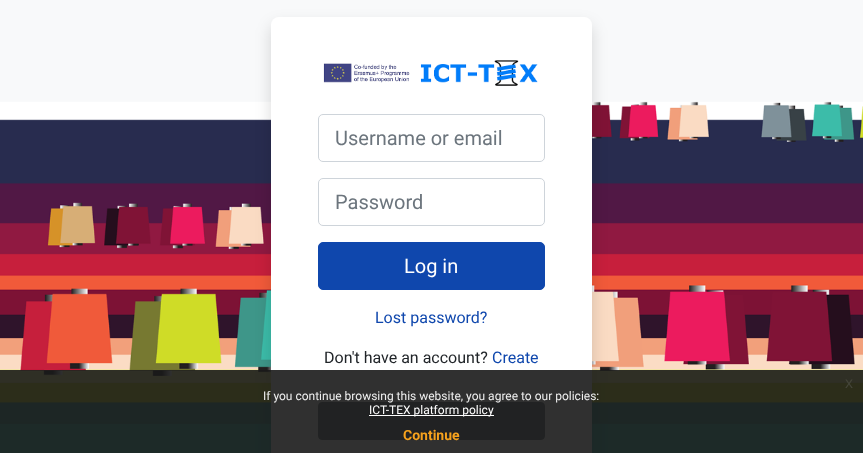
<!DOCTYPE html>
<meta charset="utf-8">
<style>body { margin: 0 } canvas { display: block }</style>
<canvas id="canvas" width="863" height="453"></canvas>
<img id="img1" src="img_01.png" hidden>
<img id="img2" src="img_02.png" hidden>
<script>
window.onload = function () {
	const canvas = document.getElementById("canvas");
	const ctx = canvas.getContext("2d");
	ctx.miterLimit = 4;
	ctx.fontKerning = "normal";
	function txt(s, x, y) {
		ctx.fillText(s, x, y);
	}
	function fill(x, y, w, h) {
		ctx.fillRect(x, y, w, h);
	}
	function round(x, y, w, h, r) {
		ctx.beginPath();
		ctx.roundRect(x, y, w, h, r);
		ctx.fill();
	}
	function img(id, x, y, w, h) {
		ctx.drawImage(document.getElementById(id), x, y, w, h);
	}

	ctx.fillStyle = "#F8F9FA";
	fill(0, 0, 863, 453);
	img("img1", 0, 101, 863, 352);
	ctx.fillStyle = "rgba(0, 0, 0, 0.15)";
	ctx.filter = "blur(8px)";
	ctx.beginPath();
	ctx.roundRect(271, 25, 321, 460, 8);
	ctx.fill();
	ctx.filter = "none";
	ctx.fillStyle = "#FFFFFF";
	round(271, 17, 321, 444, 8);
	img("img2", 323, 60, 215, 26);
	ctx.beginPath();
	ctx.roundRect(318.5, 114.5, 226, 47, 4.5);
	ctx.strokeStyle = "#CED4DA";
	ctx.stroke();
	ctx.beginPath();
	ctx.roundRect(318.5, 178.5, 226, 47, 4.5);
	ctx.stroke();
	ctx.fillStyle = "#0F47AD";
	ctx.beginPath();
	ctx.roundRect(318.5, 242.5, 226, 47, 4.5);
	ctx.fill();
	ctx.strokeStyle = "#0F47AD";
	ctx.stroke();
	ctx.fillStyle = "#6C757D";
	ctx.beginPath();
	ctx.roundRect(318.5, 402.5, 226, 37, 3.5);
	ctx.fill();
	ctx.strokeStyle = "#6C757D";
	ctx.stroke();
	ctx.fillStyle = "rgba(25, 25, 25, 0.9)";
	fill(0, 370, 863, 83);
	ctx.fillStyle = "#FFFFFF";
	fill(369, 415, 125, 1);
	ctx.font = "20px Roboto";
	ctx.fillStyle = "#6C757D";
	txt("Username or email", 335, 145);
	txt("Password", 335, 209);
	ctx.fillStyle = "#FFFFFF";
	txt("Log in", 404, 273);
	ctx.font = "16px Roboto";
	ctx.fillStyle = "#0F47AD";
	txt("Lost password?", 375, 323);
	ctx.fillStyle = "#212529";
	txt("Don't have an account?", 324, 363);
	ctx.fillStyle = "#0F47AD";
	txt("Create", 492, 363);
	ctx.font = "16px Liberation Sans";
	ctx.fillStyle = "#444539";
	txt("x", 845, 388);
	ctx.font = "12px Roboto";
	ctx.fillStyle = "#EFEFEF";
	txt("If you continue browsing this website, you agree to our policies:", 263, 400);
	ctx.fillStyle = "#FFFFFF";
	txt("ICT-TEX platform policy", 369, 414);
	ctx.font = "bold 14px Roboto";
	ctx.fillStyle = "#F6A21D";
	txt("Continue", 403, 440);
};
</script>
